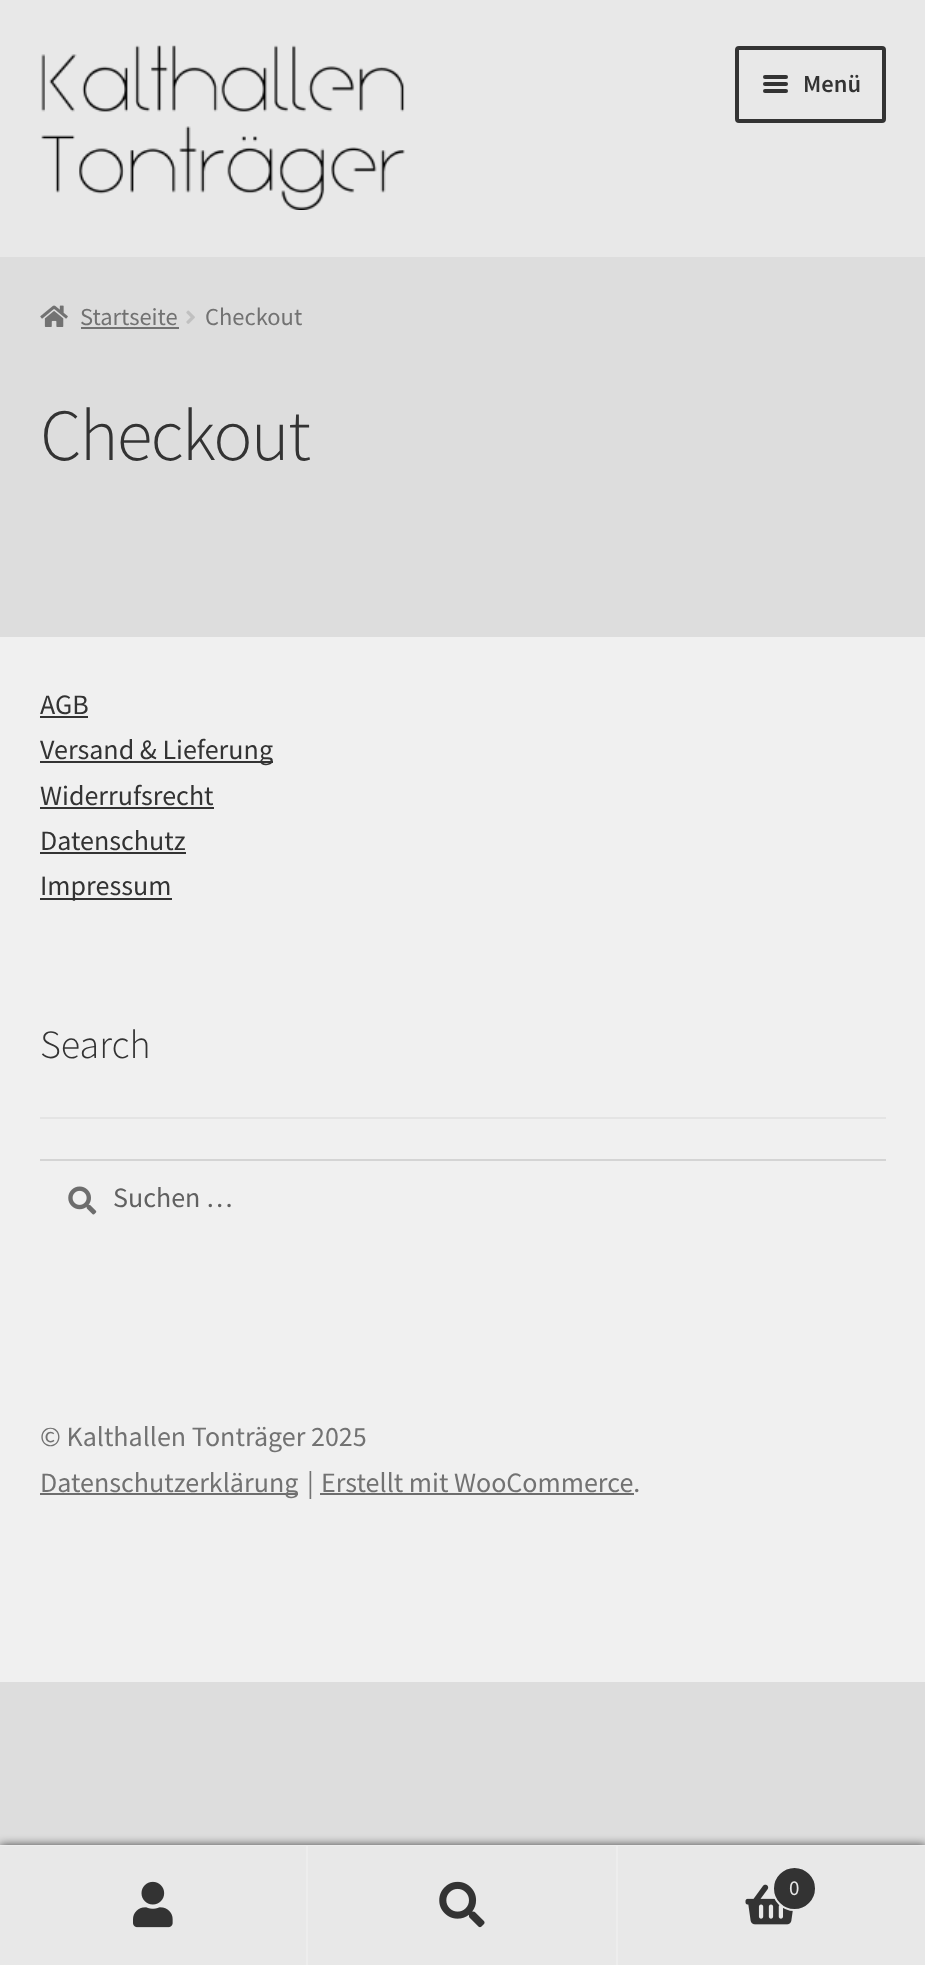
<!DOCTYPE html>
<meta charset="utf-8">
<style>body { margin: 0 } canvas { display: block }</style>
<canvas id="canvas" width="925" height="1965"></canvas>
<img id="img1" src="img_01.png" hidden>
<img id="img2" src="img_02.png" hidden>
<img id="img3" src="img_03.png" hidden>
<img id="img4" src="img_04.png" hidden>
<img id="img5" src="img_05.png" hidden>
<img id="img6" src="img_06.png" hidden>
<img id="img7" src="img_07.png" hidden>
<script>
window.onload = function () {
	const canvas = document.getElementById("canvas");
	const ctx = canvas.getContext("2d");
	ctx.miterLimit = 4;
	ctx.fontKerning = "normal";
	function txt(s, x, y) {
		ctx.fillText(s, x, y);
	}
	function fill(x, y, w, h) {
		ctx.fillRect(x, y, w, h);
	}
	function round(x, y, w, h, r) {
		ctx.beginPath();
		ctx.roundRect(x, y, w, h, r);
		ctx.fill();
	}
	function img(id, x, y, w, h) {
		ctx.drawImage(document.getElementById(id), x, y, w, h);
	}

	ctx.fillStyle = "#DDDDDD";
	fill(0, 0, 925, 1965);
	ctx.fillStyle = "#E8E8E8";
	fill(0, 0, 925, 257);
	img("img1", 41, 45, 364, 165);
	ctx.beginPath();
	ctx.roundRect(737, 48, 147, 73, 2);
	ctx.strokeStyle = "#333333";
	ctx.lineWidth = 4;
	ctx.stroke();
	ctx.fillStyle = "#333333";
	round(763, 75, 25, 4, 2);
	round(763, 82, 25, 4, 2);
	round(763, 89, 25, 4, 2);
	img("img2", 40, 305, 28, 22);
	ctx.fillStyle = "#727272";
	fill(81, 327, 98, 2);
	img("img3", 186, 310, 9, 14);
	ctx.fillStyle = "#F0F0F0";
	fill(0, 637, 925, 1045);
	ctx.fillStyle = "#333333";
	fill(40, 716, 48, 2);
	fill(40, 761, 233, 2);
	fill(40, 807, 174, 2);
	fill(40, 852, 146, 2);
	fill(40, 898, 132, 2);
	ctx.fillStyle = "#E4E4E4";
	fill(40, 1117, 846, 2);
	img("img4", 68, 1186, 29, 29);
	ctx.fillStyle = "#D4D4D4";
	fill(40, 1159, 846, 2);
	ctx.fillStyle = "#6D6D6D";
	fill(40, 1493, 258, 2);
	fill(320, 1493, 314, 2);
	ctx.fillStyle = "rgba(0, 0, 0, 0.7)";
	ctx.filter = "blur(5px)";
	ctx.beginPath();
	ctx.rect(0, 1845, 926, 120);
	ctx.fill();
	ctx.filter = "none";
	ctx.fillStyle = "#EDEDED";
	fill(0, 1845, 925, 1);
	ctx.fillStyle = "#E8E8E8";
	fill(0, 1846, 306, 119);
	ctx.fillStyle = "#EDEDED";
	fill(306, 1846, 2, 119);
	img("img5", 133, 1881, 40, 47);
	ctx.fillStyle = "#E8E8E8";
	fill(308, 1846, 308, 119);
	ctx.fillStyle = "#EDEDED";
	fill(616, 1846, 2, 119);
	img("img6", 439, 1881, 46, 47);
	ctx.fillStyle = "#E8E8E8";
	fill(618, 1846, 307, 119);
	img("img7", 745, 1884, 48, 41);
	ctx.fillStyle = "#333333";
	ctx.beginPath();
	ctx.arc(794.5, 1888.5, 21.5, 0, Math.PI * 2);
	ctx.fill();
	ctx.strokeStyle = "#E8E8E8";
	ctx.lineWidth = 2;
	ctx.stroke();
	ctx.font = "600 24.5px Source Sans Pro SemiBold";
	txt("Menü", 803, 92);
	ctx.font = "24.5px Source Sans Pro";
	ctx.fillStyle = "#727272";
	txt("Startseite", 80, 325);
	txt("Checkout", 205, 325);
	ctx.letterSpacing = "-1.75px";
	ctx.font = "300 73.5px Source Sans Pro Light";
	ctx.fillStyle = "#333333";
	txt("Checkout", 40, 460);
	ctx.letterSpacing = "0px";
	ctx.font = "28px Source Sans Pro";
	txt("AGB", 40, 714);
	txt("Versand & Lieferung", 40, 759);
	txt("Widerrufsrecht", 40, 805);
	txt("Datenschutz", 40, 850);
	txt("Impressum", 40, 895);
	ctx.font = "300 40px Source Sans Pro Light";
	txt("Search", 40, 1058);
	ctx.font = "28px Source Sans Pro";
	ctx.fillStyle = "#616161";
	txt("Suchen …", 113, 1207);
	ctx.fillStyle = "#727272";
	txt("© Kalthallen Tonträger 2025", 40, 1446);
	txt("Datenschutzerklärung", 40, 1492);
	txt("|", 307, 1492);
	txt("Erstellt mit WooCommerce.", 321, 1492);
	ctx.font = "21px Source Sans Pro";
	ctx.fillStyle = "#E8E8E8";
	txt("0", 789, 1895);
};
</script>
